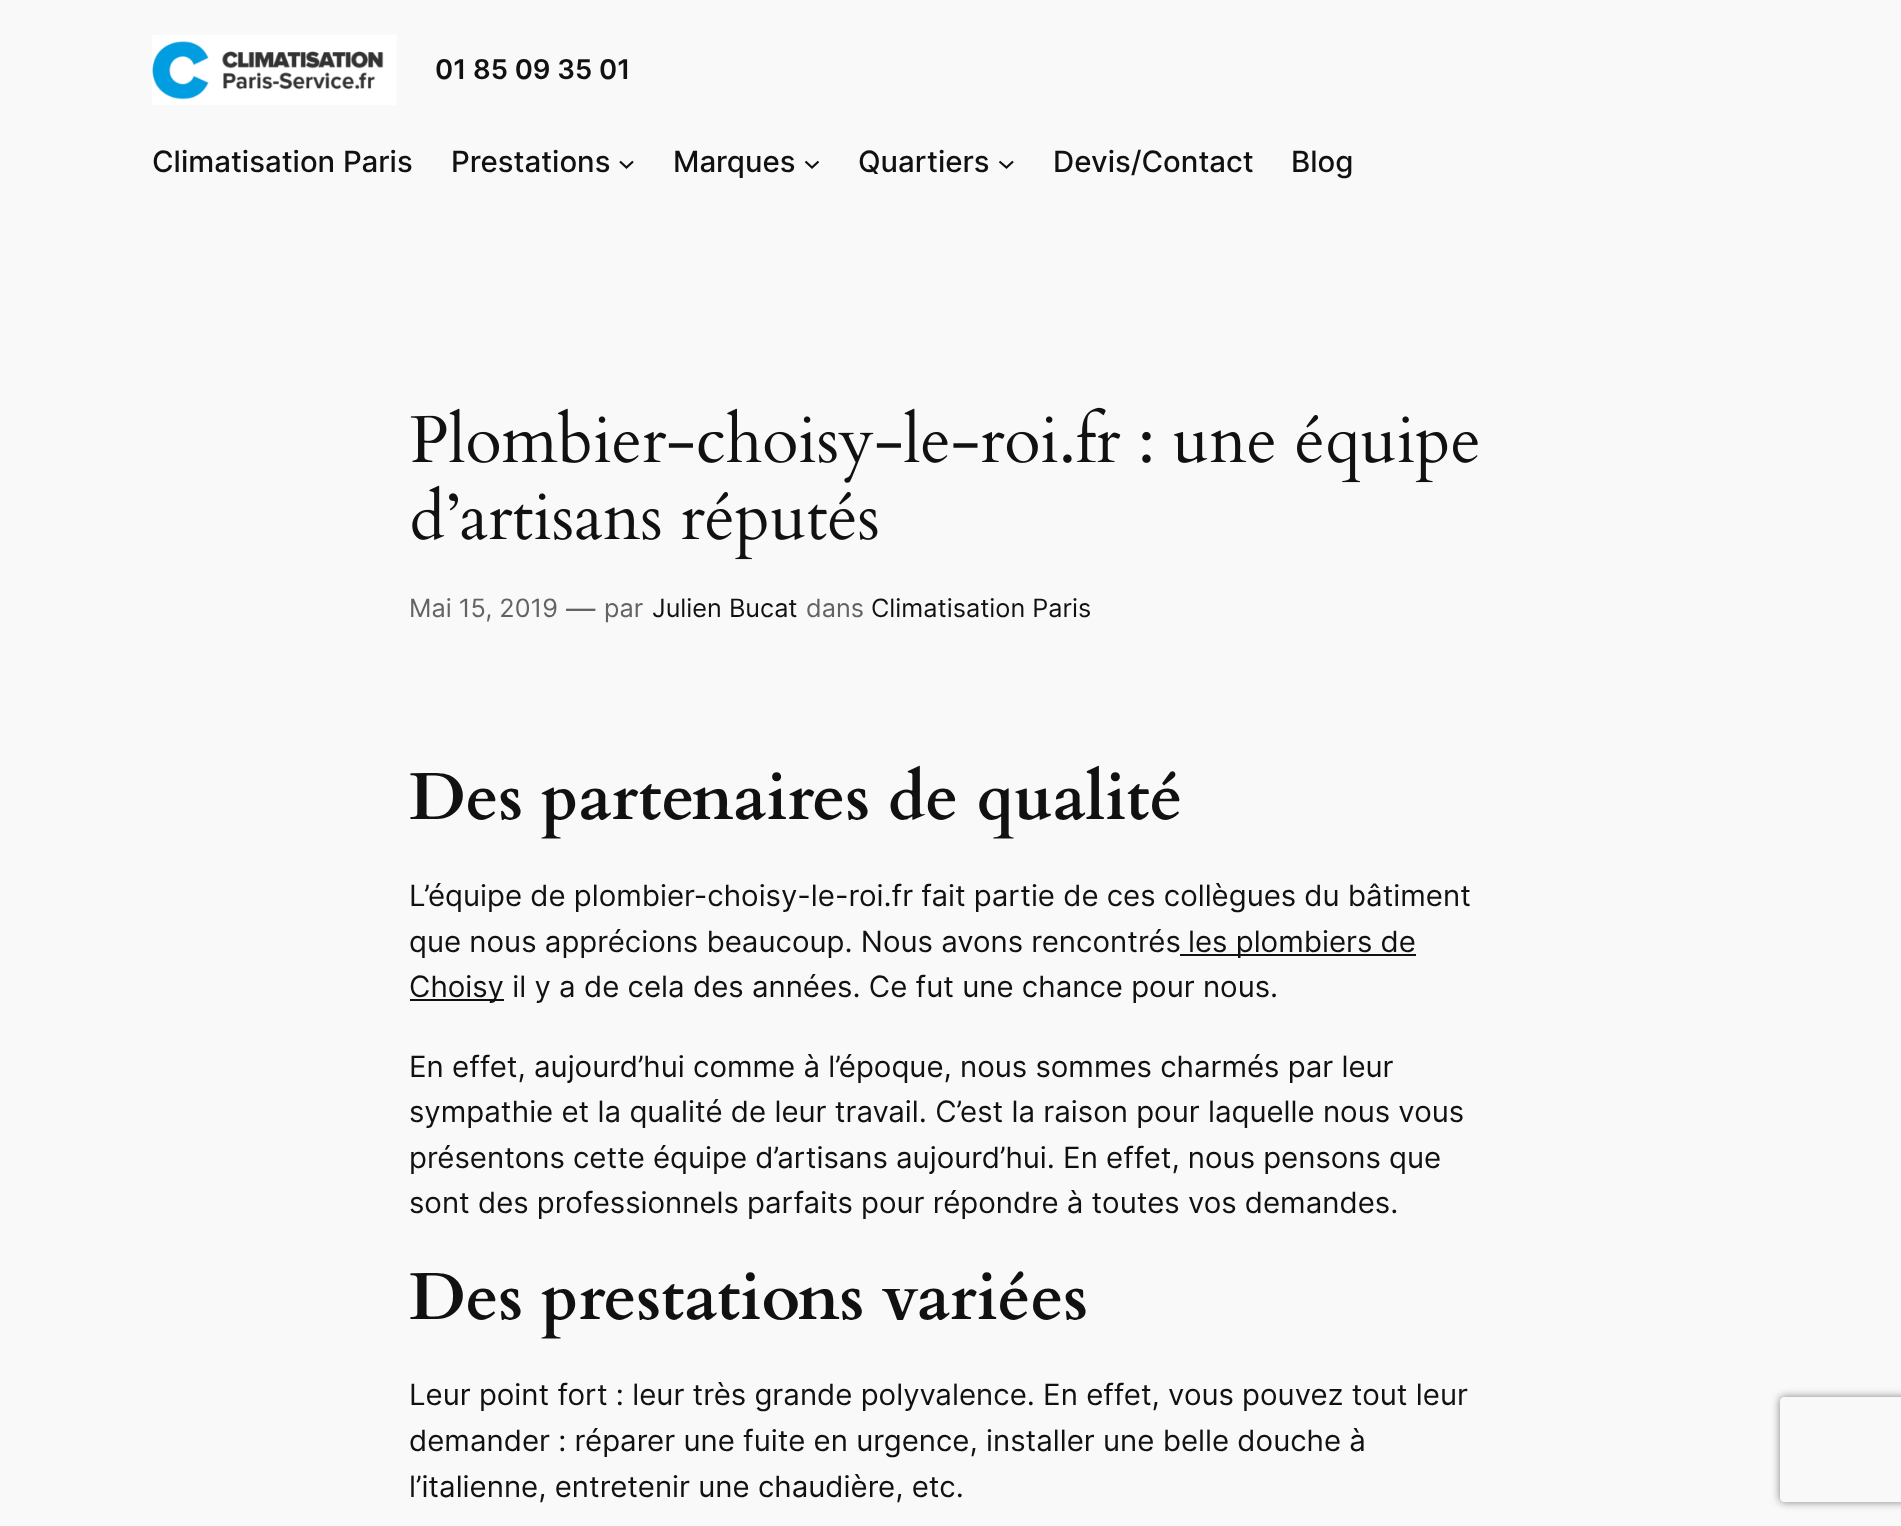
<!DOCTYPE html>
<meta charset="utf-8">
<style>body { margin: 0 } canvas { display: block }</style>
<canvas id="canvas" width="1901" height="1526"></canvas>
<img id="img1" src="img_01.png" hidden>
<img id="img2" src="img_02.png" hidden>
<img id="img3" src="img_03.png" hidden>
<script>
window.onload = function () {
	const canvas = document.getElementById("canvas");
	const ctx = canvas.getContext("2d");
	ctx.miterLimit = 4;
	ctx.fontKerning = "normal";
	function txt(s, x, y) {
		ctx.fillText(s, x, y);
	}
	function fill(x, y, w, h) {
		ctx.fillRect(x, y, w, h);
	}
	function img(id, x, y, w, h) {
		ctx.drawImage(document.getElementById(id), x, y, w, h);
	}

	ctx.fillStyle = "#F9F9F9";
	fill(0, 0, 1901, 1526);
	img("img1", 152, 35, 245, 70);
	ctx.beginPath();
	ctx.moveTo(620, 161.5);
	ctx.lineTo(626.5, 167.5);
	ctx.lineTo(633, 161.5);
	ctx.strokeStyle = "#111111";
	ctx.lineWidth = 2.2;
	ctx.stroke();
	ctx.beginPath();
	ctx.moveTo(805.5, 161.5);
	ctx.lineTo(812, 167.5);
	ctx.lineTo(818.5, 161.5);
	ctx.stroke();
	ctx.beginPath();
	ctx.moveTo(999.5, 161.5);
	ctx.lineTo(1006.5, 167.5);
	ctx.lineTo(1013, 161.5);
	ctx.stroke();
	img("img2", 410, 407, 1068, 76);
	img("img3", 412, 485, 466, 75);
	ctx.fillStyle = "#111111";
	fill(1180, 954, 236, 2);
	fill(410, 999, 94, 2);
	ctx.save();
	ctx.beginPath();
	ctx.moveTo(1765, 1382);
	ctx.lineTo(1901, 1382);
	ctx.lineTo(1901, 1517);
	ctx.lineTo(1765, 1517);
	ctx.closePath();
	ctx.moveTo(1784, 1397);
	ctx.lineTo(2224, 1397);
	ctx.bezierCurveTo(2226, 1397, 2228, 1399, 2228, 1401);
	ctx.lineTo(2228, 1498);
	ctx.bezierCurveTo(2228, 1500, 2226, 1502, 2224, 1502);
	ctx.lineTo(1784, 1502);
	ctx.bezierCurveTo(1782, 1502, 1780, 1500, 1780, 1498);
	ctx.lineTo(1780, 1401);
	ctx.bezierCurveTo(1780, 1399, 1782, 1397, 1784, 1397);
	ctx.closePath();
	ctx.clip("evenodd");
	ctx.fillStyle = "#808080";
	ctx.filter = "blur(4.5px)";
	ctx.beginPath();
	ctx.roundRect(1780, 1397, 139, 105, 4);
	ctx.fill();
	ctx.filter = "none";
	ctx.restore();
	ctx.font = "600 27.25px Inter";
	txt("01 85 09 35 01", 435, 79);
	ctx.font = "500 29.4px Inter";
	txt("Climatisation Paris", 152, 172);
	txt("Prestations", 451, 172);
	txt("Marques", 673, 172);
	txt("Quartiers", 858, 172);
	txt("Devis/Contact", 1053, 172);
	txt("Blog", 1291, 172);
	ctx.font = "25.25px Inter";
	ctx.fillStyle = "#636363";
	txt("Mai 15, 2019", 409, 617);
	ctx.font = "29.4px Inter";
	txt("—", 566, 619);
	ctx.font = "25.25px Inter";
	txt("par", 604, 617);
	ctx.fillStyle = "#111111";
	txt("Julien Bucat", 652, 617);
	ctx.fillStyle = "#636363";
	txt("dans", 806, 617);
	ctx.fillStyle = "#111111";
	txt("Climatisation Paris", 871, 617);
	ctx.font = "bold 66.3px Cardo";
	txt("Des partenaires de qualité", 409, 819);
	ctx.wordSpacing = "-0.1px";
	ctx.font = "29.4px Inter";
	txt("L’équipe de plombier-choisy-le-roi.fr fait partie de ces collègues du bâtiment", 409, 906);
	ctx.wordSpacing = "0px";
	txt("que nous apprécions beaucoup. Nous avons rencontrés", 409, 952);
	txt("les plombiers de", 1188, 952);
	txt("Choisy il y a de cela des années. Ce fut une chance pour nous.", 409, 997);
	txt("En effet, aujourd’hui comme à l’époque, nous sommes charmés par leur", 409, 1077);
	txt("sympathie et la qualité de leur travail. C’est la raison pour laquelle nous vous", 409, 1122);
	ctx.wordSpacing = "-0.1px";
	txt("présentons cette équipe d’artisans aujourd’hui. En effet, nous pensons que", 409, 1168);
	txt("sont des professionnels parfaits pour répondre à toutes vos demandes.", 409, 1213);
	ctx.wordSpacing = "0px";
	ctx.font = "bold 66.3px Cardo";
	txt("Des prestations variées", 409, 1319);
	ctx.font = "29.4px Inter";
	txt("Leur point fort : leur très grande polyvalence. En effet, vous pouvez tout leur", 409, 1405);
	txt("demander : réparer une fuite en urgence, installer une belle douche à", 409, 1451);
	txt("l’italienne, entretenir une chaudière, etc.", 409, 1497);
};
</script>
